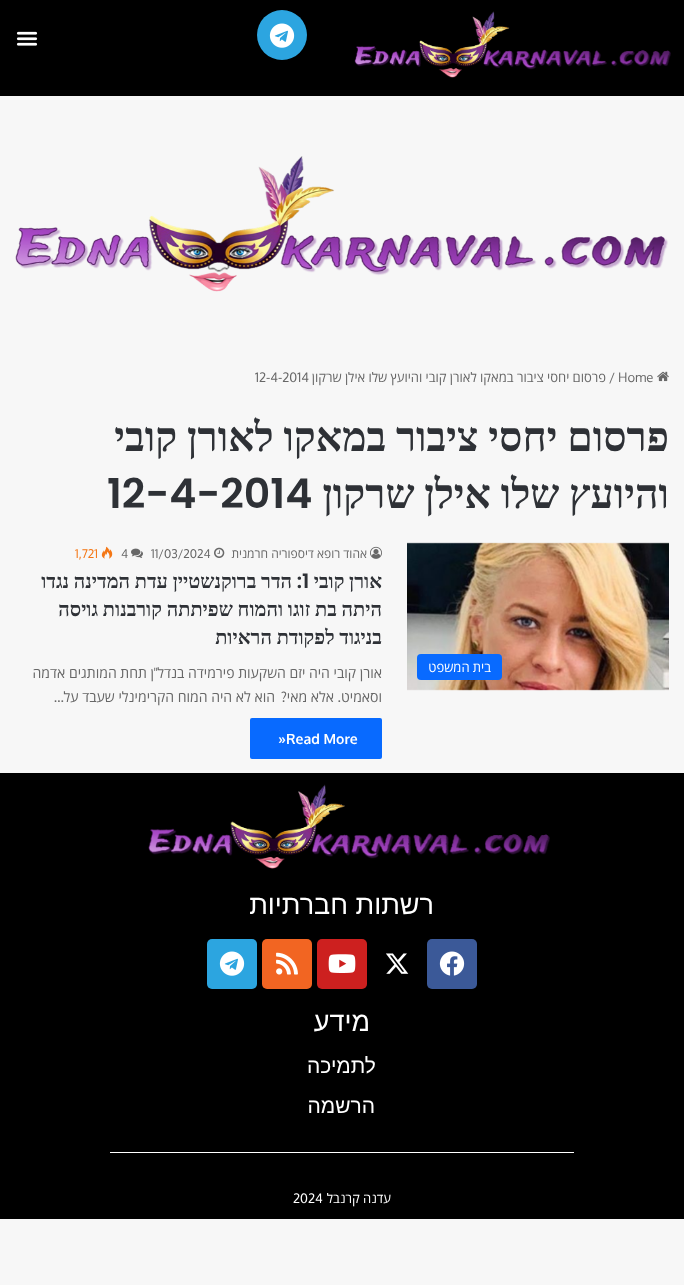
<!DOCTYPE html>
<meta charset="utf-8">
<style>body { margin: 0 } canvas { display: block }</style>
<canvas id="canvas" width="684" height="1285"></canvas>
<img id="img1" src="img_01.png" hidden>
<img id="img2" src="img_02.png" hidden>
<img id="img3" src="img_03.png" hidden>
<img id="img4" src="img_04.png" hidden>
<img id="img5" src="img_05.png" hidden>
<img id="img6" src="img_06.png" hidden>
<img id="img7" src="img_07.png" hidden>
<img id="img8" src="img_08.png" hidden>
<img id="img9" src="img_09.png" hidden>
<img id="img10" src="img_10.png" hidden>
<img id="img11" src="img_11.png" hidden>
<img id="img12" src="img_12.png" hidden>
<img id="img13" src="img_13.png" hidden>
<img id="img14" src="img_14.png" hidden>
<img id="img15" src="img_15.png" hidden>
<script>
window.onload = function () {
	const canvas = document.getElementById("canvas");
	const ctx = canvas.getContext("2d");
	ctx.miterLimit = 4;
	ctx.fontKerning = "normal";
	function txt(s, x, y) {
		ctx.fillText(s, x, y);
	}
	function fill(x, y, w, h) {
		ctx.fillRect(x, y, w, h);
	}
	function round(x, y, w, h, r) {
		ctx.beginPath();
		ctx.roundRect(x, y, w, h, r);
		ctx.fill();
	}
	function img(id, x, y, w, h) {
		ctx.drawImage(document.getElementById(id), x, y, w, h);
	}

	ctx.fillStyle = "#F7F7F7";
	fill(0, 0, 684, 1285);
	ctx.fillStyle = "#000000";
	fill(0, 0, 684, 96);
	img("img1", 354, 11, 317, 67);
	ctx.fillStyle = "#2CA5E0";
	ctx.beginPath();
	ctx.arc(282, 35, 25, 0, Math.PI * 2);
	ctx.fill();
	img("img2", 269, 23, 26, 25);
	img("img3", 16, 31, 22, 15);
	img("img4", 15, 156, 653, 136);
	img("img5", 657, 371, 12, 11);
	img("img6", 407, 542, 262, 149);
	ctx.fillStyle = "#086AFF";
	round(417, 654, 85, 26, 4);
	img("img7", 370, 546, 12, 13);
	img("img8", 214, 547, 11, 11);
	img("img9", 131, 548, 12, 10);
	img("img10", 101, 546, 12, 13);
	round(250, 718, 132, 41, 2);
	ctx.fillStyle = "#000000";
	fill(0, 773, 684, 446);
	img("img11", 148, 784, 402, 85);
	ctx.fillStyle = "#3B5998";
	round(427, 939, 50, 50, 5);
	img("img12", 439, 951, 26, 25);
	img("img13", 386, 953, 23, 21);
	ctx.fillStyle = "#CD201F";
	round(317, 939, 50, 50, 5);
	img("img14", 328, 954, 28, 19);
	ctx.fillStyle = "#F26522";
	round(262, 939, 50, 50, 5);
	img("img15", 276, 952, 22, 23);
	ctx.fillStyle = "#2CA5E0";
	round(207, 939, 50, 50, 5);
	img("img2", 219, 951, 26, 25);
	ctx.fillStyle = "#FFFFFF";
	fill(110, 1152, 464, 1);
	ctx.font = "13px Oxygen";
	ctx.fillStyle = "#676767";
	txt("Home", 618, 382);
	txt("/", 609, 382);
	ctx.wordSpacing = "-0.1px";
	ctx.direction = "rtl";
	ctx.font = "13px Open Sans";
	txt("פרסום יחסי ציבור במאקו לאורן קובי והיועץ שלו אילן שרקון", 606, 382);
	ctx.wordSpacing = "0px";
	ctx.direction = "ltr";
	ctx.font = "13px Oxygen";
	txt("12-4-2014", 255, 382);
	ctx.wordSpacing = "-0.5px";
	ctx.direction = "rtl";
	ctx.font = "bold 41px Liberation Serif";
	ctx.fillStyle = "#2E3136";
	txt("פרסום יחסי ציבור במאקו לאורן קובי", 669, 451);
	txt("והיועץ שלו אילן שרקון", 669, 508);
	ctx.wordSpacing = "0px";
	ctx.direction = "ltr";
	ctx.font = "600 41px Poppins";
	txt("12-4-2014", 107, 508);
	ctx.wordSpacing = "-0.1px";
	ctx.direction = "rtl";
	ctx.font = "13px Open Sans";
	ctx.fillStyle = "#FFFFFF";
	txt("בית המשפט", 491, 672);
	ctx.wordSpacing = "0px";
	ctx.font = "12px Open Sans";
	ctx.fillStyle = "#676767";
	txt("אהוד רופא דיספוריה חרמנית", 367, 558);
	ctx.direction = "ltr";
	ctx.font = "12px Oxygen";
	txt("11/03/2024", 151, 558);
	txt("4", 121, 558);
	ctx.fillStyle = "#F47614";
	txt("1,721", 75, 558);
	ctx.wordSpacing = "-0.25px";
	ctx.direction = "rtl";
	ctx.font = "bold 20px Liberation Serif";
	ctx.fillStyle = "#2E3136";
	txt("אורן קובי", 382, 588);
	ctx.wordSpacing = "0px";
	ctx.direction = "ltr";
	ctx.font = "600 20px Poppins";
	txt("1", 302, 588);
	ctx.direction = "rtl";
	txt(":", 302, 588);
	ctx.wordSpacing = "-0.25px";
	ctx.font = "bold 20px Liberation Serif";
	txt("הדר ברוקנשטיין עדת המדינה נגדו", 292, 588);
	txt("היתה בת זוגו והמוח שפיתתה קורבנות גויסה", 382, 616);
	txt("בניגוד לפקודת הראיות", 382, 644);
	ctx.wordSpacing = "0px";
	ctx.font = "14px Open Sans";
	ctx.fillStyle = "#676767";
	txt("אורן קובי היה יזם השקעות פירמידה בנדל", 382, 678);
	ctx.font = "14px Oxygen";
	txt("\"", 158, 678);
	ctx.font = "14px Open Sans";
	txt("ן תחת המותגים אדמה", 154, 678);
	txt("וסאמיט", 382, 702);
	ctx.font = "14px Oxygen";
	txt(".", 341, 702);
	ctx.font = "14px Open Sans";
	txt("אלא מאי", 334, 702);
	ctx.font = "14px Oxygen";
	txt("?", 287, 702);
	ctx.font = "14px Open Sans";
	txt("הוא לא היה המוח הקרימינלי שעבד על", 275, 702);
	ctx.font = "14px Oxygen";
	txt("…", 64, 702);
	ctx.direction = "ltr";
	ctx.font = "bold 14px Oxygen";
	ctx.fillStyle = "#FFFFFF";
	txt("»Read More", 278, 744);
	ctx.direction = "rtl";
	ctx.font = "27px Liberation Sans";
	txt("רשתות חברתיות", 434, 914);
	txt("מידע", 370, 1031);
	ctx.font = "21px Liberation Sans";
	txt("לתמיכה", 376, 1073);
	txt("הרשמה", 375, 1113);
	ctx.wordSpacing = "-0.1px";
	ctx.font = "13px Open Sans";
	txt("עדנה קרנבל", 391, 1203);
	ctx.wordSpacing = "0px";
	ctx.direction = "ltr";
	ctx.font = "13px Oxygen";
	txt("2024", 293, 1203);
};
</script>
